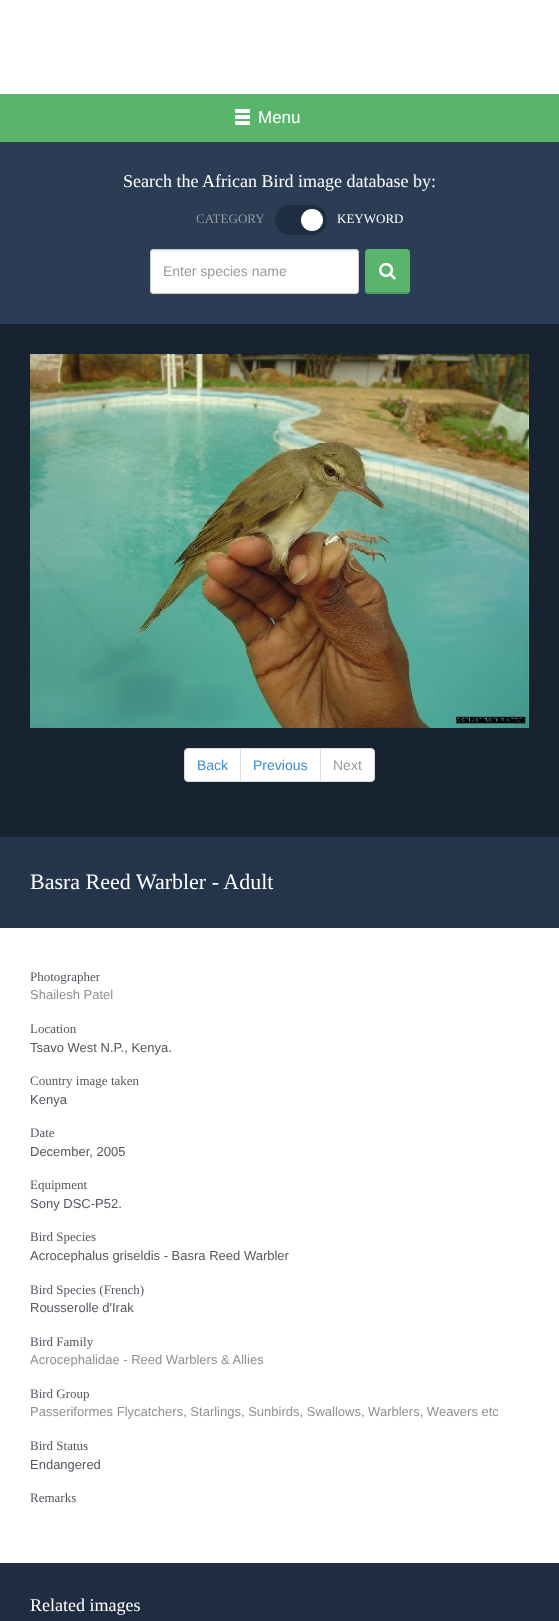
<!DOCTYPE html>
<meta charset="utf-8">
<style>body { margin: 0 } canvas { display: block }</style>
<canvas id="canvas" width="559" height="1621"></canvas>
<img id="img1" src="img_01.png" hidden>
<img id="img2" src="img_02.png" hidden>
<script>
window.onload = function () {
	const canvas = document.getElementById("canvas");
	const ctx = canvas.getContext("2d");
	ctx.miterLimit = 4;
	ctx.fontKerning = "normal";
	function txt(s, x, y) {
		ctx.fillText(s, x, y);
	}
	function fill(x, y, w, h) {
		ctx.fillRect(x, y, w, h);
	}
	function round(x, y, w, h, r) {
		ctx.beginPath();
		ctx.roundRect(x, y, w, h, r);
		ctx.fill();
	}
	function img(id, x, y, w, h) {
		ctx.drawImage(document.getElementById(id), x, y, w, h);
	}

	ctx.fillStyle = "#182331";
	fill(0, 0, 559, 1621);
	ctx.fillStyle = "#FFFFFF";
	fill(0, 0, 559, 94);
	ctx.fillStyle = "#5AB56C";
	fill(0, 94, 559, 48);
	ctx.fillStyle = "#FFFFFF";
	round(235, 109, 15, 4, 1);
	round(235, 115, 15, 4, 1);
	round(235, 121, 15, 4, 1);
	ctx.fillStyle = "#2B3C55";
	fill(0, 142, 559, 182);
	ctx.fillStyle = "#1F2D42";
	round(275, 205, 52, 30, 15);
	ctx.fillStyle = "#FFFFFF";
	ctx.beginPath();
	ctx.arc(312, 220, 11, 0, Math.PI * 2);
	ctx.fill();
	round(150, 249, 209, 45, 4);
	ctx.fillStyle = "#ECECEC";
	ctx.beginPath();
	ctx.moveTo(154, 251);
	ctx.lineTo(355, 251);
	ctx.bezierCurveTo(357, 251, 358, 252, 358, 254);
	ctx.bezierCurveTo(358, 252, 357, 250, 355, 250);
	ctx.lineTo(153, 250);
	ctx.bezierCurveTo(151, 251, 151, 252, 151, 254);
	ctx.bezierCurveTo(151, 252, 152, 251, 154, 251);
	ctx.closePath();
	ctx.fill();
	ctx.beginPath();
	ctx.roundRect(150.5, 249.5, 208, 44, 3.5);
	ctx.strokeStyle = "#CCCCCC";
	ctx.stroke();
	ctx.fillStyle = "#5AB56C";
	round(365, 249, 45, 45, 4);
	ctx.fillStyle = "#4D9A5C";
	fill(367, 292, 41, 2);
	img("img1", 379, 262, 17, 18);
	img("img2", 30, 354, 499, 374);
	ctx.fillStyle = "#FFFFFF";
	ctx.beginPath();
	ctx.roundRect(184.5, 748.5, 56, 33, [3.5, 0, 0, 3.5]);
	ctx.fill();
	ctx.strokeStyle = "#DDDDDD";
	ctx.stroke();
	ctx.beginPath();
	ctx.rect(240.5, 748.5, 80, 33);
	ctx.fill();
	ctx.stroke();
	ctx.beginPath();
	ctx.roundRect(320.5, 748.5, 54, 33, [0, 3.5, 3.5, 0]);
	ctx.fill();
	ctx.stroke();
	fill(0, 928, 559, 635);
	ctx.fillStyle = "#24344B";
	fill(0, 837, 559, 91);
	ctx.fillStyle = "#1F2D42";
	fill(0, 1563, 559, 58);
	ctx.font = "17px Liberation Sans";
	ctx.fillStyle = "#FFFFFF";
	txt("Menu", 258, 123);
	ctx.font = "18px Liberation Serif";
	txt("Search the African Bird image database by:", 123, 187);
	ctx.font = "13px Liberation Serif";
	ctx.fillStyle = "#959BA3";
	txt("CATEGORY", 196, 223);
	ctx.fillStyle = "#FFFFFF";
	txt("KEYWORD", 337, 223);
	ctx.font = "14px Liberation Sans";
	ctx.fillStyle = "#999999";
	txt("Enter species name", 163, 276);
	ctx.fillStyle = "#428BCA";
	txt("Back", 197, 770);
	txt("Previous", 253, 770);
	ctx.fillStyle = "#999999";
	txt("Next", 333, 770);
	ctx.font = "22px Liberation Serif";
	ctx.fillStyle = "#FFFFFF";
	txt("Basra Reed Warbler - Adult", 30, 889);
	ctx.font = "13px Liberation Serif";
	ctx.fillStyle = "#595560";
	txt("Photographer", 30, 981);
	ctx.font = "13px Liberation Sans";
	ctx.fillStyle = "#918E95";
	txt("Shailesh Patel", 30, 999);
	ctx.font = "13px Liberation Serif";
	ctx.fillStyle = "#595560";
	txt("Location", 30, 1033);
	ctx.font = "13px Liberation Sans";
	txt("Tsavo West N.P., Kenya.", 30, 1052);
	ctx.font = "13px Liberation Serif";
	txt("Country image taken", 30, 1085);
	ctx.font = "13px Liberation Sans";
	txt("Kenya", 30, 1104);
	ctx.font = "13px Liberation Serif";
	txt("Date", 30, 1137);
	ctx.font = "13px Liberation Sans";
	txt("December, 2005", 30, 1156);
	ctx.font = "13px Liberation Serif";
	txt("Equipment", 30, 1189);
	ctx.font = "13px Liberation Sans";
	txt("Sony DSC-P52.", 30, 1208);
	ctx.font = "13px Liberation Serif";
	txt("Bird Species", 30, 1241);
	ctx.font = "13px Liberation Sans";
	txt("Acrocephalus griseldis - Basra Reed Warbler", 30, 1260);
	ctx.font = "13px Liberation Serif";
	txt("Bird Species (French)", 30, 1294);
	ctx.font = "13px Liberation Sans";
	txt("Rousserolle d'Irak", 30, 1312);
	ctx.font = "13px Liberation Serif";
	txt("Bird Family", 30, 1346);
	ctx.font = "13px Liberation Sans";
	ctx.fillStyle = "#918E95";
	txt("Acrocephalidae - Reed Warblers & Allies", 30, 1364);
	ctx.font = "13px Liberation Serif";
	ctx.fillStyle = "#595560";
	txt("Bird Group", 30, 1398);
	ctx.font = "13px Liberation Sans";
	ctx.fillStyle = "#918E95";
	txt("Passeriformes Flycatchers, Starlings, Sunbirds, Swallows, Warblers, Weavers etc", 30, 1416);
	ctx.font = "13px Liberation Serif";
	ctx.fillStyle = "#595560";
	txt("Bird Status", 30, 1450);
	ctx.font = "13px Liberation Sans";
	txt("Endangered", 30, 1469);
	ctx.font = "13px Liberation Serif";
	txt("Remarks", 30, 1502);
	ctx.font = "18px Liberation Serif";
	ctx.fillStyle = "#FFFFFF";
	txt("Related images", 30, 1611);
};
</script>
